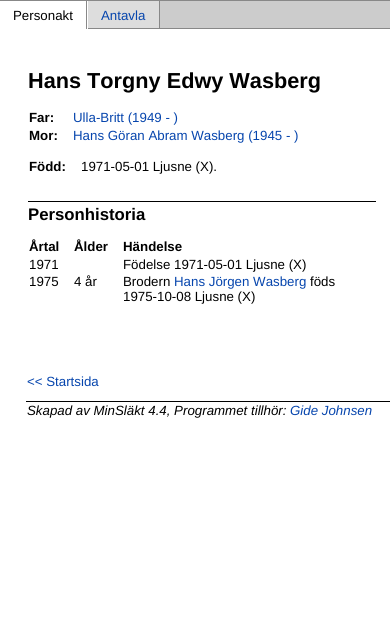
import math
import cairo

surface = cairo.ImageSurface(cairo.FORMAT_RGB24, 390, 632)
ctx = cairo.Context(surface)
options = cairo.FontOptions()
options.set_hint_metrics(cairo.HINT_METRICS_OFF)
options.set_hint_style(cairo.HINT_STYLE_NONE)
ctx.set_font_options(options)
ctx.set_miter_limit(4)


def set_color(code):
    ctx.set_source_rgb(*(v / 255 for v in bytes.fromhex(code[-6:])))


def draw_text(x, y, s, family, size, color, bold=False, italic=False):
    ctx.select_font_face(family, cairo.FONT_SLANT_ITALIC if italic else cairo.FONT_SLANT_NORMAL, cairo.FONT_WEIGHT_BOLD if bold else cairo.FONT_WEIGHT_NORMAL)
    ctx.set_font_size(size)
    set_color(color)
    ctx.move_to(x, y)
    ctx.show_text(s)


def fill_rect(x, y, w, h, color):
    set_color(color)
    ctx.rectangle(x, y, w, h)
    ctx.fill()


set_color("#ffffff")
ctx.paint()
fill_rect(0, 0, 390, 1, "#888888")
fill_rect(86, 0, 1, 29, "#888888")
draw_text(13, 20, "Personakt", "Liberation Sans", 13.3, "#000000")
fill_rect(88, 1, 71, 27, "#dddddd")
fill_rect(159, 0, 1, 29, "#888888")
fill_rect(88, 28, 302, 1, "#888888")
draw_text(101, 20, "Antavla", "Liberation Sans", 13.3, "#0645ad")
fill_rect(160, 1, 230, 27, "#cccccc")
draw_text(28, 88, "Hans Torgny Edwy Wasberg", "Liberation Sans", 21.7, "#000000", bold=True)
draw_text(29, 122, "Far:", "Liberation Sans", 13.3, "#000000", bold=True)
draw_text(73, 122, "Ulla-Britt (1949 - )", "Liberation Sans", 13.3, "#0645ad")
draw_text(29, 140, "Mor:", "Liberation Sans", 13.3, "#000000", bold=True)
draw_text(73, 140, "Hans Göran Abram Wasberg (1945 - )", "Liberation Sans", 13.3, "#0645ad")
draw_text(29, 171, "Född:", "Liberation Sans", 13.3, "#000000", bold=True)
draw_text(81, 171, "1971-05-01 Ljusne (X).", "Liberation Sans", 13.3, "#000000")
fill_rect(28, 201, 348, 1, "#000000")
draw_text(28, 220, "Personhistoria", "Liberation Sans", 16.75, "#000000", bold=True)
draw_text(29, 251, "Årtal", "Liberation Sans", 13.3, "#000000", bold=True)
draw_text(74, 251, "Ålder", "Liberation Sans", 13.3, "#000000", bold=True)
draw_text(123, 251, "Händelse", "Liberation Sans", 13.3, "#000000", bold=True)
draw_text(29, 269, "1971", "Liberation Sans", 13.3, "#000000")
draw_text(123, 269, "Födelse 1971-05-01 Ljusne (X)", "Liberation Sans", 13.3, "#000000")
draw_text(29, 286, "1975", "Liberation Sans", 13.3, "#000000")
draw_text(74, 286, "4 år", "Liberation Sans", 13.3, "#000000")
draw_text(123, 286, "Brodern", "Liberation Sans", 13.3, "#000000")
draw_text(174, 286, "Hans Jörgen Wasberg", "Liberation Sans", 13.3, "#0645ad")
draw_text(310, 286, "föds", "Liberation Sans", 13.3, "#000000")
draw_text(123, 301, "1975-10-08 Ljusne (X)", "Liberation Sans", 13.3, "#000000")
draw_text(27, 386, "<< Startsida", "Liberation Sans", 13.3, "#0645ad")
fill_rect(26, 401, 364, 1, "#000000")
draw_text(27, 415, "Skapad av MinSläkt 4.4, Programmet tillhör:", "Liberation Sans", 13.3, "#000000", italic=True)
draw_text(290, 415, "Gide Johnsen", "Liberation Sans", 13.3, "#0645ad", italic=True)
surface.write_to_png("output.png")
